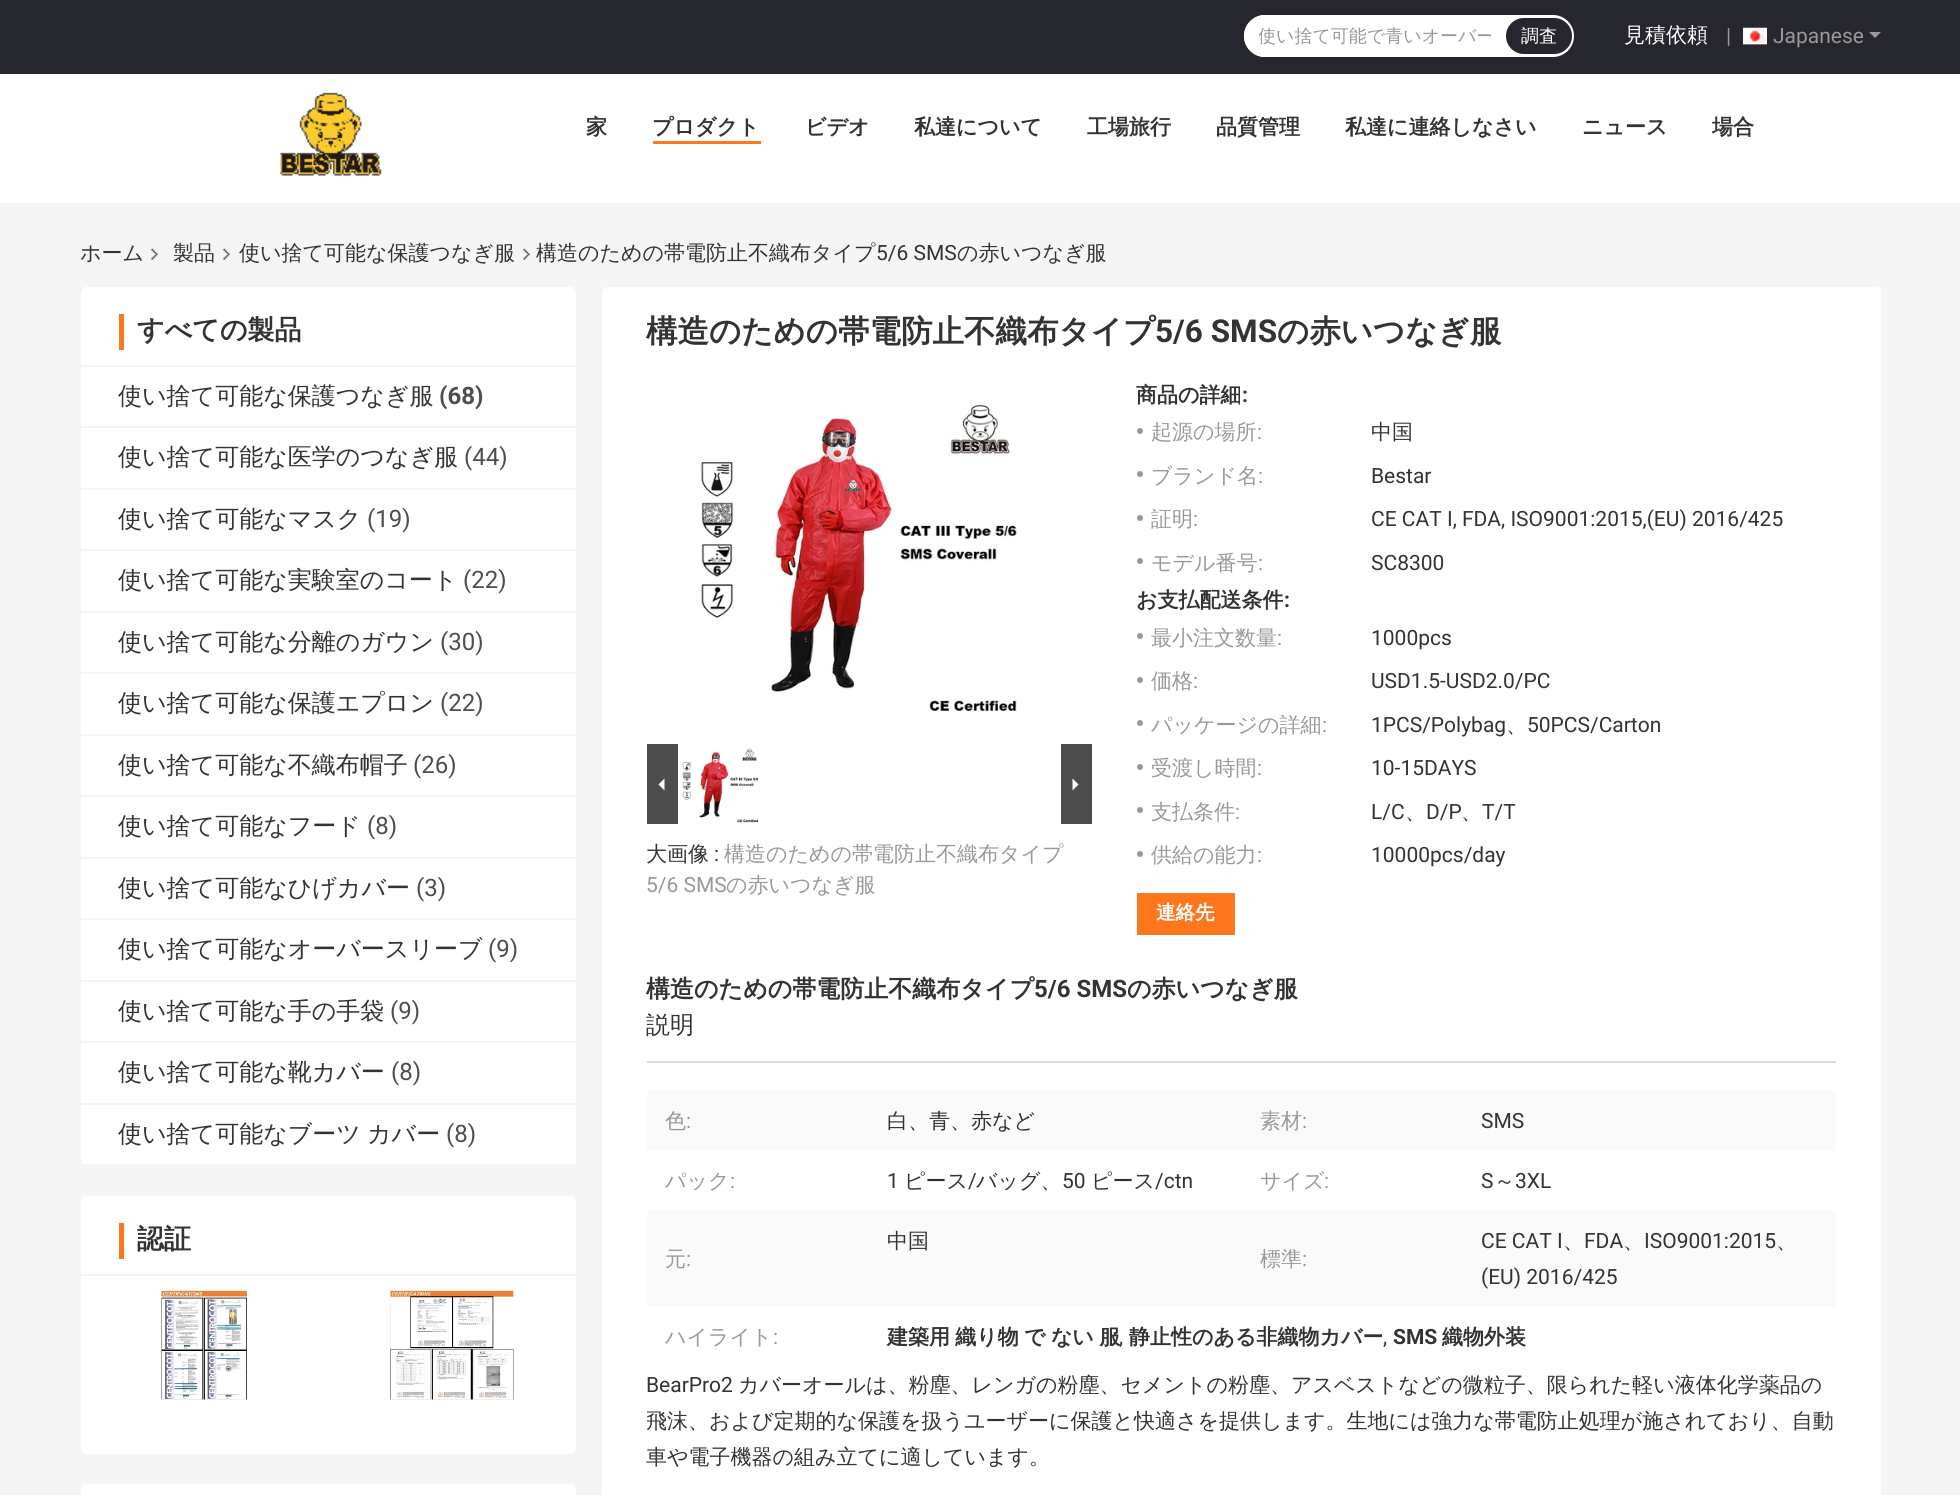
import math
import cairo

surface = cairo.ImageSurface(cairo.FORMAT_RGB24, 1960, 1495)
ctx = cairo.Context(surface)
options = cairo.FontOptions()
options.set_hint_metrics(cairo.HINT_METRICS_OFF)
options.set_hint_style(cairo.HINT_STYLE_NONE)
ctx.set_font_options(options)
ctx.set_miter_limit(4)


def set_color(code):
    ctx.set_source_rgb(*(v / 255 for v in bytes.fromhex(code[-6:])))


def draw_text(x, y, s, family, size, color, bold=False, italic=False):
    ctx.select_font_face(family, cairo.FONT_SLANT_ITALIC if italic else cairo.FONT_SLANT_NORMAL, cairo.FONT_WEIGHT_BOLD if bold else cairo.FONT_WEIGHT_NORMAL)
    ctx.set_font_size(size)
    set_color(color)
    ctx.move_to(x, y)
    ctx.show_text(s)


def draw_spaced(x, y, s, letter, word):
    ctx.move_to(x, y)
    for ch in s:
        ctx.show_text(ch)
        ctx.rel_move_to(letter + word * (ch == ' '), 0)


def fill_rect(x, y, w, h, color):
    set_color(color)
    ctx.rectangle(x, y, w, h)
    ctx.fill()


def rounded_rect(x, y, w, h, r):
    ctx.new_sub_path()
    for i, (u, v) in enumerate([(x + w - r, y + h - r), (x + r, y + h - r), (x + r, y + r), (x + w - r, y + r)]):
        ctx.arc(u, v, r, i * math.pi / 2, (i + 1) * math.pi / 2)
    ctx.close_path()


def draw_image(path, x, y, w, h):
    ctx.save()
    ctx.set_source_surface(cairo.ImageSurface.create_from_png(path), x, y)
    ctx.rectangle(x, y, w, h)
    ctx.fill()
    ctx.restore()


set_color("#f5f5f5")
ctx.paint()
fill_rect(0, 74, 1960, 129, "#ffffff")
fill_rect(0, 0, 1960, 74, "#26262e")
set_color("#ffffff")
rounded_rect(1244, 15, 330, 42, 21)
ctx.fill()
ctx.new_path()
ctx.move_to(1265, 15)
ctx.line_to(1506, 15)
ctx.line_to(1506, 57)
ctx.line_to(1265, 57)
ctx.curve_to(1253.5, 57, 1244, 47.5, 1244, 36)
ctx.curve_to(1244, 24.5, 1253.5, 15, 1265, 15)
ctx.close_path()
ctx.fill()
ctx.save()
ctx.rectangle(1259, 24, 232, 26)
ctx.clip()
draw_text(1258, 42, "使い捨て可能で青いオーバー", "WenQuanYi Zen Hei Medium", 18, "#999999")
ctx.restore()
set_color("#26262e")
rounded_rect(1506, 18, 66, 36, 18)
ctx.fill()
draw_text(1521, 42, "調査", "WenQuanYi Zen Hei Medium", 18, "#ffffff")
draw_text(1624, 42, "見積依頼", "WenQuanYi Zen Hei Medium", 21, "#ffffff")
draw_text(1726, 43, "|", "Roboto", 21, "#999999")
draw_image("assets/img1.png", 1743, 27, 24, 18)
draw_text(1773, 43, "Japanese", "Roboto", 21, "#999999")
ctx.new_path()
ctx.move_to(1869, 32)
ctx.line_to(1881, 32)
ctx.line_to(1875, 38)
ctx.close_path()
ctx.fill()
draw_image("assets/img2.png", 280, 92, 102, 84)
draw_text(586, 134, "家", "WenQuanYi Zen Hei", 21, "#333333", bold=True)
draw_text(652, 134, "プロダクト", "WenQuanYi Zen Hei", 21, "#333333", bold=True)
fill_rect(653, 141, 108, 3, "#ff771c")
draw_text(805, 134, "ビデオ", "WenQuanYi Zen Hei", 21, "#333333", bold=True)
draw_text(914, 134, "私達について", "WenQuanYi Zen Hei", 21, "#333333", bold=True)
draw_text(1087, 134, "工場旅行", "WenQuanYi Zen Hei", 21, "#333333", bold=True)
draw_text(1216, 134, "品質管理", "WenQuanYi Zen Hei", 21, "#333333", bold=True)
draw_text(1345, 134, "私達に連絡しなさい", "WenQuanYi Zen Hei", 21, "#333333", bold=True)
draw_text(1582, 134, "ニュース", "WenQuanYi Zen Hei", 21, "#333333", bold=True)
draw_text(1712, 134, "場合", "WenQuanYi Zen Hei", 21, "#333333", bold=True)
draw_text(80, 260, "ホーム", "WenQuanYi Zen Hei Medium", 21, "#333333")
draw_image("assets/img3.png", 151, 248, 7, 12)
draw_text(173, 260, "製品", "WenQuanYi Zen Hei Medium", 21, "#333333")
draw_image("assets/img3.png", 223, 248, 7, 12)
draw_text(239, 260, "使い捨て可能な保護つなぎ服", "WenQuanYi Zen Hei Medium", 21, "#333333")
draw_image("assets/img4.png", 523, 248, 7, 12)
draw_text(536, 260, "構造のための帯電防止不織布タイプ", "WenQuanYi Zen Hei Medium", 21, "#333333")
draw_text(876, 260, "5/6 SMS", "Roboto", 21, "#333333")
draw_text(957, 260, "の赤いつなぎ服", "WenQuanYi Zen Hei Medium", 21, "#333333")
set_color("#ffffff")
rounded_rect(81, 287, 495, 879, 6)
ctx.fill()
fill_rect(81, 365, 495, 2, "#f5f5f5")
fill_rect(119, 314, 5, 36, "#ff771c")
draw_text(137, 339, "すべての製品", "WenQuanYi Zen Hei", 27, "#333333", bold=True)
fill_rect(81, 426, 495, 2, "#f5f5f5")
draw_text(118, 404, "使い捨て可能な保護つなぎ服", "WenQuanYi Zen Hei Medium", 24, "#333333")
draw_text(439, 404, "(68)", "Roboto", 24, "#4e4e4e", bold=True)
fill_rect(81, 488, 495, 2, "#f5f5f5")
draw_text(118, 465, "使い捨て可能な医学のつなぎ服", "WenQuanYi Zen Hei Medium", 24, "#333333")
draw_text(464, 465, "(44)", "Roboto", 24, "#4e4e4e")
fill_rect(81, 549, 495, 2, "#f5f5f5")
draw_text(118, 527, "使い捨て可能なマスク", "WenQuanYi Zen Hei Medium", 24, "#333333")
draw_text(367, 527, "(19)", "Roboto", 24, "#4e4e4e")
fill_rect(81, 611, 495, 2, "#f5f5f5")
draw_text(118, 588, "使い捨て可能な実験室のコート", "WenQuanYi Zen Hei Medium", 24, "#333333")
draw_text(463, 588, "(22)", "Roboto", 24, "#4e4e4e")
fill_rect(81, 672, 495, 2, "#f5f5f5")
draw_text(118, 650, "使い捨て可能な分離のガウン", "WenQuanYi Zen Hei Medium", 24, "#333333")
draw_text(440, 650, "(30)", "Roboto", 24, "#4e4e4e")
fill_rect(81, 734, 495, 2, "#f5f5f5")
draw_text(118, 711, "使い捨て可能な保護エプロン", "WenQuanYi Zen Hei Medium", 24, "#333333")
draw_text(440, 711, "(22)", "Roboto", 24, "#4e4e4e")
fill_rect(81, 795, 495, 2, "#f5f5f5")
draw_text(118, 773, "使い捨て可能な不織布帽子", "WenQuanYi Zen Hei Medium", 24, "#333333")
draw_text(413, 773, "(26)", "Roboto", 24, "#4e4e4e")
fill_rect(81, 857, 495, 2, "#f5f5f5")
draw_text(118, 834, "使い捨て可能なフード", "WenQuanYi Zen Hei Medium", 24, "#333333")
draw_text(367, 834, "(8)", "Roboto", 24, "#4e4e4e")
fill_rect(81, 918, 495, 2, "#f5f5f5")
draw_text(118, 896, "使い捨て可能なひげカバー", "WenQuanYi Zen Hei Medium", 24, "#333333")
draw_text(416, 896, "(3)", "Roboto", 24, "#4e4e4e")
fill_rect(81, 980, 495, 2, "#f5f5f5")
draw_text(118, 957, "使い捨て可能なオーバースリーブ", "WenQuanYi Zen Hei Medium", 24, "#333333")
draw_text(488, 957, "(9)", "Roboto", 24, "#4e4e4e")
fill_rect(81, 1041, 495, 2, "#f5f5f5")
draw_text(118, 1019, "使い捨て可能な手の手袋", "WenQuanYi Zen Hei Medium", 24, "#333333")
draw_text(390, 1019, "(9)", "Roboto", 24, "#4e4e4e")
fill_rect(81, 1103, 495, 2, "#f5f5f5")
draw_text(118, 1080, "使い捨て可能な靴カバー", "WenQuanYi Zen Hei Medium", 24, "#333333")
draw_text(391, 1080, "(8)", "Roboto", 24, "#4e4e4e")
fill_rect(81, 1164, 495, 2, "#f5f5f5")
ctx.select_font_face("WenQuanYi Zen Hei Medium")
set_color("#333333")
draw_spaced(118, 1142, "使い捨て可能なブーツ カバー", 0, -1)
draw_text(446, 1142, "(8)", "Roboto", 24, "#4e4e4e")
set_color("#ffffff")
rounded_rect(81, 1196, 495, 258, 6)
ctx.fill()
fill_rect(81, 1274, 495, 2, "#f5f5f5")
fill_rect(119, 1223, 5, 36, "#ff771c")
draw_text(137, 1248, "認証", "WenQuanYi Zen Hei", 27, "#333333", bold=True)
draw_image("assets/img5.png", 161, 1290, 86, 110)
draw_image("assets/img6.png", 390, 1290, 124, 110)
set_color("#ffffff")
rounded_rect(81, 1484, 495, 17, 6)
ctx.fill()
rounded_rect(602, 287, 1279, 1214, 6)
ctx.fill()
draw_text(646, 342, "構造のための帯電防止不織布タイプ", "WenQuanYi Zen Hei", 31.5, "#333333", bold=True)
draw_text(1155, 342, "5/6 SMS", "Roboto", 31.5, "#333333", bold=True)
draw_text(1277, 342, "の赤いつなぎ服", "WenQuanYi Zen Hei", 31.5, "#333333", bold=True)
draw_image("assets/img7.png", 700, 404, 317, 307)
fill_rect(647, 744, 31, 80, "#4d4d4d")
set_color("#ffffff")
ctx.new_path()
ctx.move_to(664.5, 778.5)
ctx.line_to(664.5, 790.5)
ctx.line_to(658.5, 784.5)
ctx.close_path()
ctx.fill()
draw_image("assets/img8.png", 682, 748, 77, 75)
fill_rect(1061, 744, 31, 80, "#4d4d4d")
set_color("#ffffff")
ctx.new_path()
ctx.move_to(1072.5, 790.5)
ctx.line_to(1072.5, 778.5)
ctx.line_to(1078.5, 784.5)
ctx.close_path()
ctx.fill()
draw_text(646, 861, "大画像", "WenQuanYi Zen Hei Medium", 21, "#333333")
draw_text(714, 861, ":", "Roboto", 21, "#333333")
draw_text(724, 861, "構造のための帯電防止不織布タイプ", "WenQuanYi Zen Hei Medium", 21, "#999999")
draw_text(646, 892, "5/6 SMS", "Roboto", 21, "#999999")
draw_text(726, 892, "の赤いつなぎ服", "WenQuanYi Zen Hei Medium", 21, "#999999")
draw_text(1136, 402, "商品の詳細", "WenQuanYi Zen Hei", 21, "#333333", bold=True)
draw_text(1242, 402, ":", "Roboto", 21, "#333333", bold=True)
set_color("#999999")
ctx.new_path()
ctx.arc(1140, 431, 3, 0, 2 * math.pi)
ctx.fill()
draw_text(1151, 439, "起源の場所", "WenQuanYi Zen Hei Medium", 21, "#999999")
draw_text(1257, 439, ":", "Roboto", 21, "#999999")
draw_text(1371, 439, "中国", "WenQuanYi Zen Hei Medium", 21, "#333333")
set_color("#999999")
ctx.new_path()
ctx.arc(1140, 474, 3, 0, 2 * math.pi)
ctx.fill()
draw_text(1151, 483, "ブランド名", "WenQuanYi Zen Hei Medium", 21, "#999999")
draw_text(1258, 483, ":", "Roboto", 21, "#999999")
draw_text(1371, 483, "Bestar", "Roboto", 21, "#333333")
set_color("#999999")
ctx.new_path()
ctx.arc(1140, 518, 3, 0, 2 * math.pi)
ctx.fill()
draw_text(1151, 526, "証明", "WenQuanYi Zen Hei Medium", 21, "#999999")
draw_text(1193, 526, ":", "Roboto", 21, "#999999")
draw_text(1371, 526, "CE CAT I, FDA, ISO9001:2015,(EU) 2016/425", "Roboto", 21, "#333333")
set_color("#999999")
ctx.new_path()
ctx.arc(1140, 561, 3, 0, 2 * math.pi)
ctx.fill()
draw_text(1151, 570, "モデル番号", "WenQuanYi Zen Hei Medium", 21, "#999999")
draw_text(1258, 570, ":", "Roboto", 21, "#999999")
draw_text(1371, 570, "SC8300", "Roboto", 21, "#333333")
draw_text(1136, 607, "お支払配送条件", "WenQuanYi Zen Hei", 21, "#333333", bold=True)
draw_text(1284, 607, ":", "Roboto", 21, "#333333", bold=True)
set_color("#999999")
ctx.new_path()
ctx.arc(1140, 636, 3, 0, 2 * math.pi)
ctx.fill()
draw_text(1151, 645, "最小注文数量", "WenQuanYi Zen Hei Medium", 21, "#999999")
draw_text(1277, 645, ":", "Roboto", 21, "#999999")
draw_text(1371, 645, "1000pcs", "Roboto", 21, "#333333")
set_color("#999999")
ctx.new_path()
ctx.arc(1140, 680, 3, 0, 2 * math.pi)
ctx.fill()
draw_text(1151, 688, "価格", "WenQuanYi Zen Hei Medium", 21, "#999999")
draw_text(1193, 688, ":", "Roboto", 21, "#999999")
draw_text(1371, 688, "USD1.5-USD2.0/PC", "Roboto", 21, "#333333")
set_color("#999999")
ctx.new_path()
ctx.arc(1140, 723, 3, 0, 2 * math.pi)
ctx.fill()
draw_text(1151, 732, "パッケージの詳細", "WenQuanYi Zen Hei Medium", 21, "#999999")
draw_text(1322, 732, ":", "Roboto", 21, "#999999")
draw_text(1371, 732, "1PCS/Polybag", "Roboto", 21, "#333333")
draw_text(1506, 732, "、", "WenQuanYi Zen Hei Medium", 21, "#333333")
draw_text(1527, 732, "50PCS/Carton", "Roboto", 21, "#333333")
set_color("#999999")
ctx.new_path()
ctx.arc(1140, 767, 3, 0, 2 * math.pi)
ctx.fill()
draw_text(1151, 775, "受渡し時間", "WenQuanYi Zen Hei Medium", 21, "#999999")
draw_text(1257, 775, ":", "Roboto", 21, "#999999")
draw_text(1371, 775, "10-15DAYS", "Roboto", 21, "#333333")
set_color("#999999")
ctx.new_path()
ctx.arc(1140, 810, 3, 0, 2 * math.pi)
ctx.fill()
draw_text(1151, 819, "支払条件", "WenQuanYi Zen Hei Medium", 21, "#999999")
draw_text(1235, 819, ":", "Roboto", 21, "#999999")
draw_text(1371, 819, "L/C", "Roboto", 21, "#333333")
draw_text(1405, 819, "、", "WenQuanYi Zen Hei Medium", 21, "#333333")
draw_text(1426, 819, "D/P", "Roboto", 21, "#333333")
draw_text(1461, 819, "、", "WenQuanYi Zen Hei Medium", 21, "#333333")
draw_text(1482, 819, "T/T", "Roboto", 21, "#333333")
set_color("#999999")
ctx.new_path()
ctx.arc(1140, 854, 3, 0, 2 * math.pi)
ctx.fill()
draw_text(1151, 862, "供給の能力", "WenQuanYi Zen Hei Medium", 21, "#999999")
draw_text(1257, 862, ":", "Roboto", 21, "#999999")
draw_text(1371, 862, "10000pcs/day", "Roboto", 21, "#333333")
fill_rect(1137, 893, 98, 42, "#ff771c")
draw_text(1156, 919, "連絡先", "WenQuanYi Zen Hei", 19.5, "#ffffff", bold=True)
fill_rect(647, 1061, 1189, 2, "#dddddd")
draw_text(646, 997, "構造のための帯電防止不織布タイプ", "WenQuanYi Zen Hei", 24, "#333333", bold=True)
draw_text(1034, 997, "5/6 SMS", "Roboto", 24, "#333333", bold=True)
draw_text(1127, 997, "の赤いつなぎ服", "WenQuanYi Zen Hei", 24, "#333333", bold=True)
draw_text(646, 1033, "説明", "WenQuanYi Zen Hei Medium", 24, "#333333")
fill_rect(647, 1091, 1189, 60, "#fafafa")
draw_text(665, 1128, "色", "WenQuanYi Zen Hei Medium", 21, "#999999")
draw_text(686, 1128, ":", "Roboto", 21, "#999999")
draw_text(887, 1128, "白、青、赤など", "WenQuanYi Zen Hei Medium", 21, "#333333")
draw_text(1260, 1128, "素材", "WenQuanYi Zen Hei Medium", 21, "#999999")
draw_text(1302, 1128, ":", "Roboto", 21, "#999999")
draw_text(1481, 1128, "SMS", "Roboto", 21, "#333333")
draw_text(665, 1188, "パック", "WenQuanYi Zen Hei Medium", 21, "#999999")
draw_text(730, 1188, ":", "Roboto", 21, "#999999")
draw_text(887, 1188, "1", "Roboto", 21, "#333333")
draw_text(904, 1188, "ピース", "WenQuanYi Zen Hei Medium", 21, "#333333")
draw_text(968, 1188, "/", "Roboto", 21, "#333333")
draw_text(976, 1188, "バッグ、", "WenQuanYi Zen Hei Medium", 21, "#333333")
draw_text(1062, 1188, "50", "Roboto", 21, "#333333")
draw_text(1091, 1188, "ピース", "WenQuanYi Zen Hei Medium", 21, "#333333")
draw_text(1155, 1188, "/ctn", "Roboto", 21, "#333333")
draw_text(1260, 1188, "サイズ", "WenQuanYi Zen Hei Medium", 21, "#999999")
draw_text(1324, 1188, ":", "Roboto", 21, "#999999")
draw_text(1481, 1188, "S", "Roboto", 21, "#333333")
draw_text(1494, 1188, "～", "WenQuanYi Zen Hei Medium", 21, "#333333")
draw_text(1515, 1188, "3XL", "Roboto", 21, "#333333")
fill_rect(647, 1211, 1189, 96, "#fafafa")
draw_text(665, 1266, "元", "WenQuanYi Zen Hei Medium", 21, "#999999")
draw_text(686, 1266, ":", "Roboto", 21, "#999999")
draw_text(887, 1248, "中国", "WenQuanYi Zen Hei Medium", 21, "#333333")
draw_text(1260, 1266, "標準", "WenQuanYi Zen Hei Medium", 21, "#999999")
draw_text(1302, 1266, ":", "Roboto", 21, "#999999")
draw_text(1481, 1248, "CE CAT I", "Roboto", 21, "#333333")
draw_text(1584, 1248, "FDA", "Roboto", 21, "#333333")
draw_text(1644, 1248, "ISO9001:2015", "Roboto", 21, "#333333")
draw_text(1563, 1248, "、", "WenQuanYi Zen Hei Medium", 21, "#333333")
draw_text(1623, 1248, "、", "WenQuanYi Zen Hei Medium", 21, "#333333")
draw_text(1776, 1248, "、", "WenQuanYi Zen Hei Medium", 21, "#333333")
draw_text(1481, 1284, "(EU) 2016/425", "Roboto", 21, "#333333")
draw_text(665, 1344, "ハイライト", "WenQuanYi Zen Hei Medium", 21, "#999999")
draw_text(773, 1344, ":", "Roboto", 21, "#999999")
ctx.select_font_face("WenQuanYi Zen Hei", cairo.FONT_SLANT_NORMAL, cairo.FONT_WEIGHT_BOLD)
set_color("#333333")
draw_spaced(887, 1344, "建築用 織り物 で ない 服", 0, -1)
draw_text(1119, 1344, ",", "Roboto", 21, "#333333")
draw_text(1129, 1344, "静止性のある非織物カバー", "WenQuanYi Zen Hei", 21, "#333333", bold=True)
draw_text(1383, 1344, ",", "Roboto", 21, "#333333")
draw_text(1393, 1344, "SMS", "Roboto", 21, "#333333", bold=True)
draw_text(1442, 1344, "織物外装", "WenQuanYi Zen Hei", 21, "#333333", bold=True)
draw_text(646, 1392, "BearPro2", "Roboto", 21, "#333333")
draw_text(738, 1392, "カバーオールは、粉塵、レンガの粉塵、セメントの粉塵、アスベストなどの微粒子、限られた軽い液体化学薬品の", "WenQuanYi Zen Hei Medium", 21, "#333333")
draw_text(646, 1428, "飛沫、および定期的な保護を扱うユーザーに保護と快適さを提供します。生地には強力な帯電防止処理が施されており、自動", "WenQuanYi Zen Hei Medium", 21, "#333333")
draw_text(646, 1464, "車や電子機器の組み立てに適しています。", "WenQuanYi Zen Hei Medium", 21, "#333333")
surface.write_to_png("output.png")
